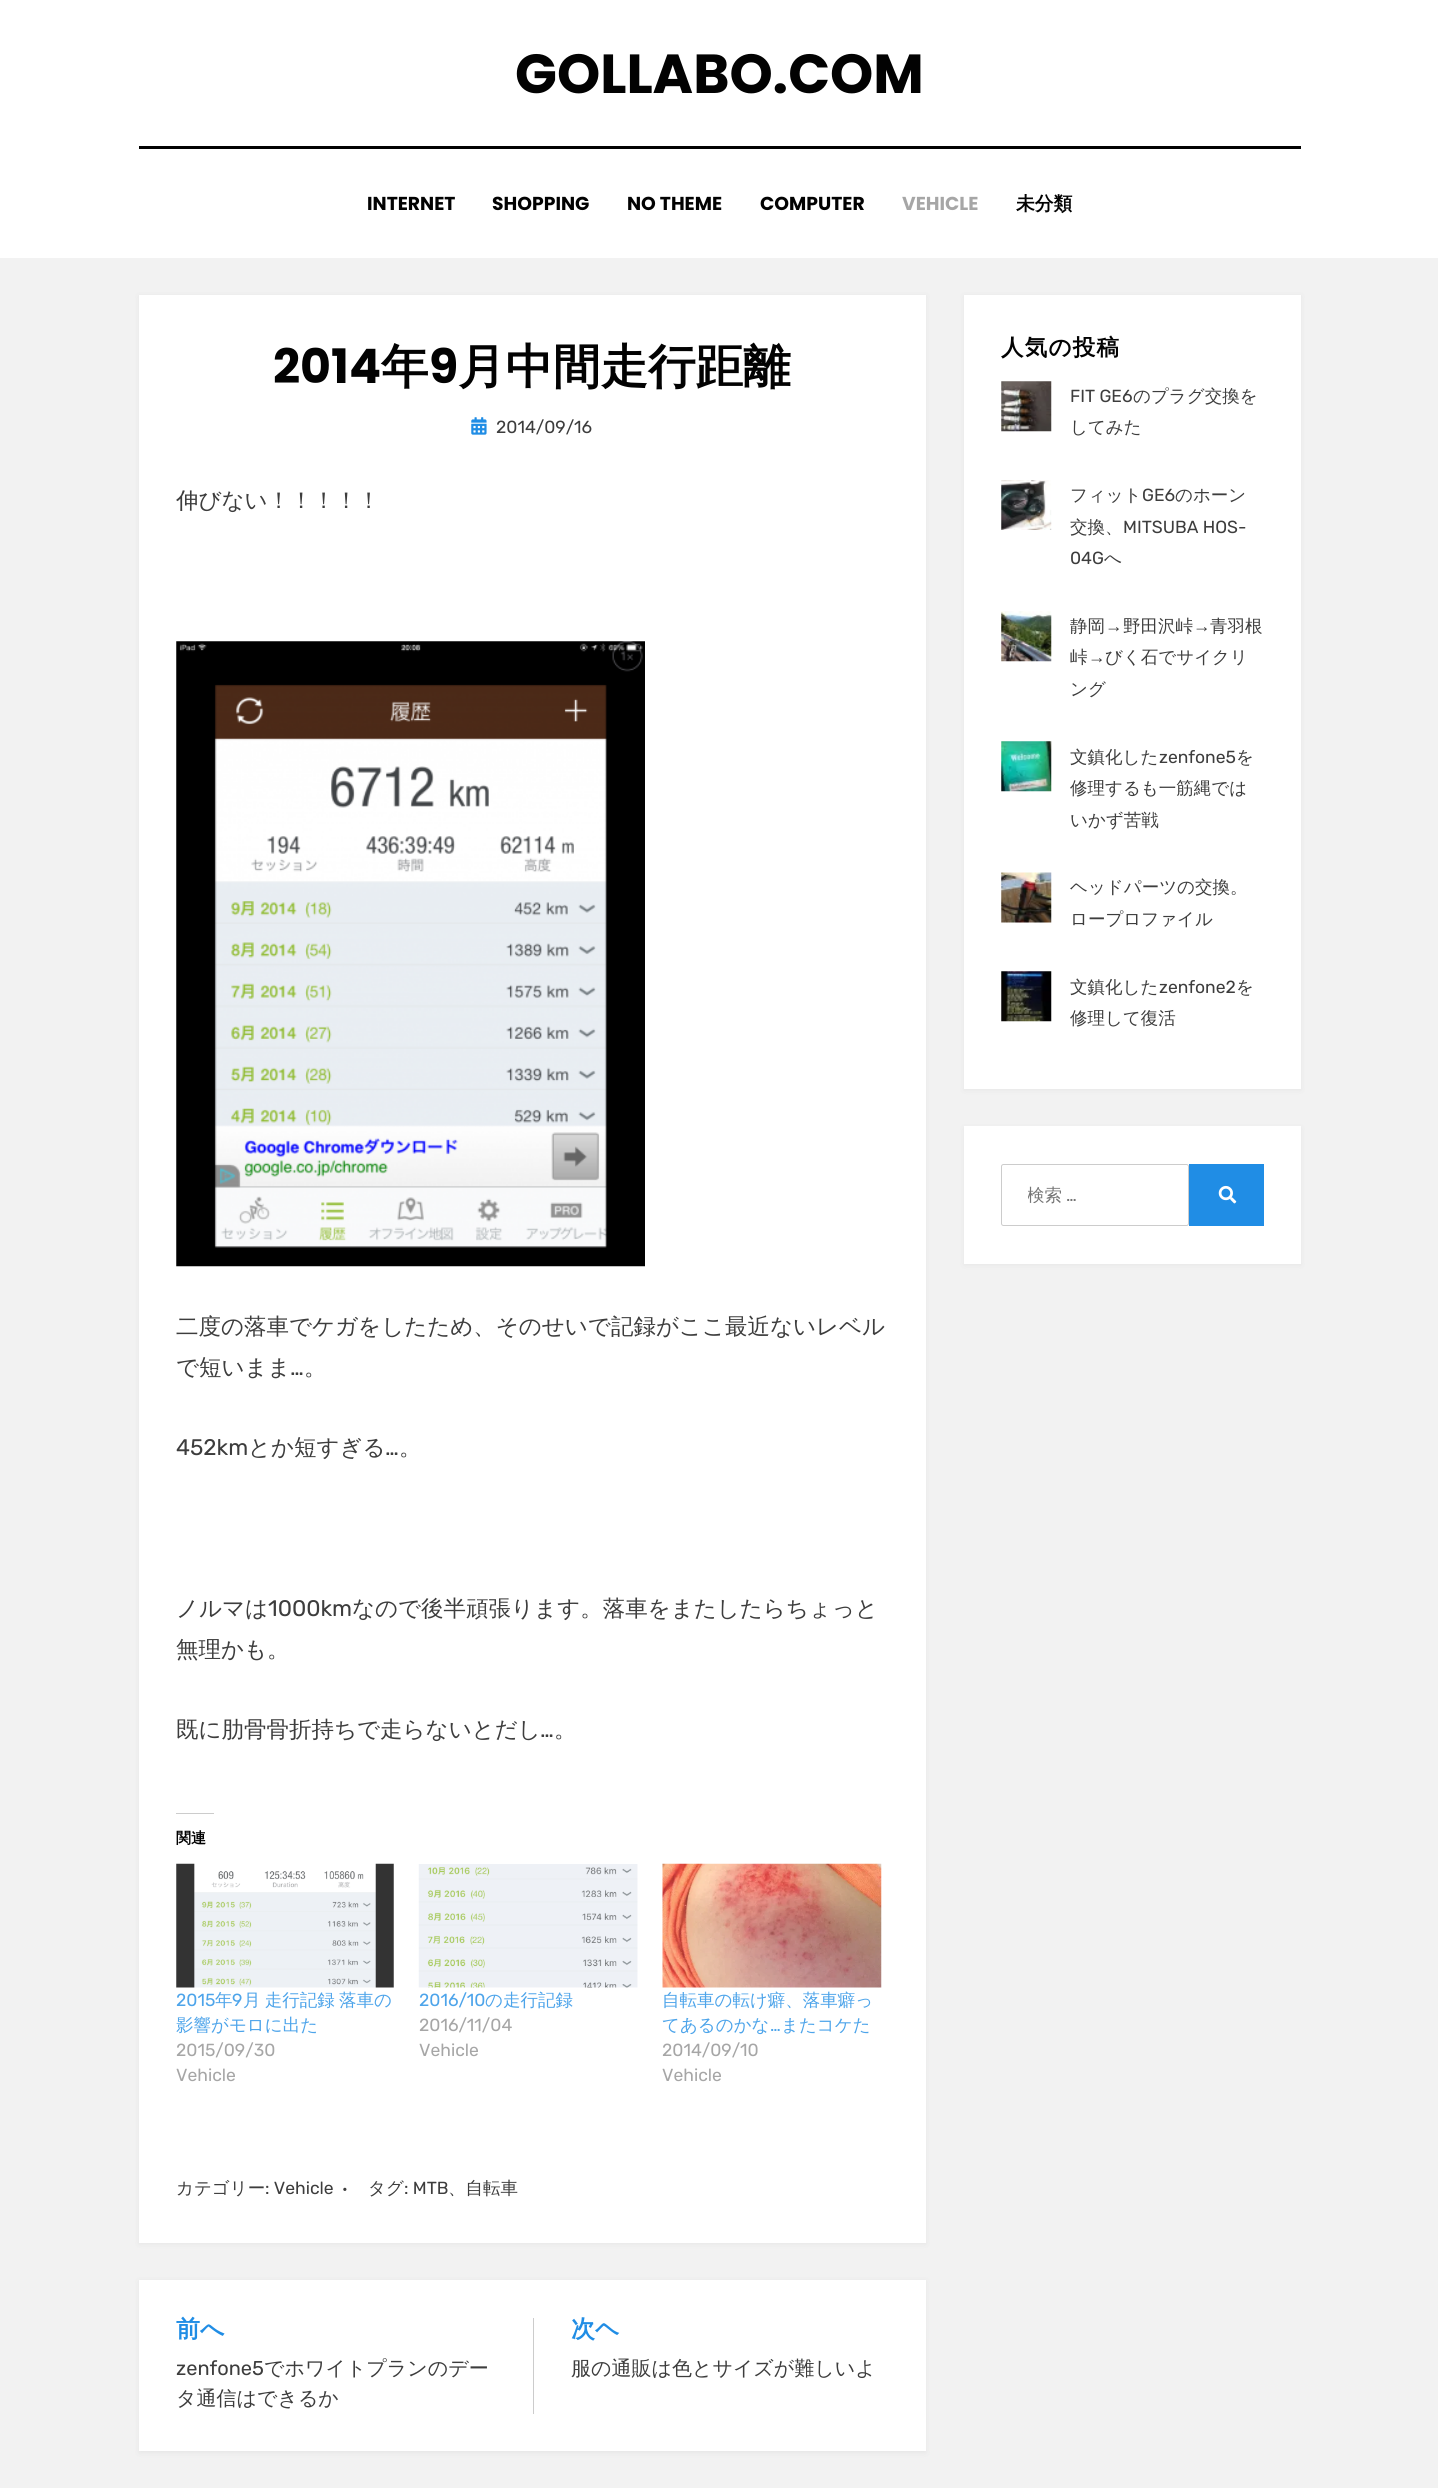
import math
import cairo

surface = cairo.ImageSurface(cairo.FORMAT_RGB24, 1438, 2488)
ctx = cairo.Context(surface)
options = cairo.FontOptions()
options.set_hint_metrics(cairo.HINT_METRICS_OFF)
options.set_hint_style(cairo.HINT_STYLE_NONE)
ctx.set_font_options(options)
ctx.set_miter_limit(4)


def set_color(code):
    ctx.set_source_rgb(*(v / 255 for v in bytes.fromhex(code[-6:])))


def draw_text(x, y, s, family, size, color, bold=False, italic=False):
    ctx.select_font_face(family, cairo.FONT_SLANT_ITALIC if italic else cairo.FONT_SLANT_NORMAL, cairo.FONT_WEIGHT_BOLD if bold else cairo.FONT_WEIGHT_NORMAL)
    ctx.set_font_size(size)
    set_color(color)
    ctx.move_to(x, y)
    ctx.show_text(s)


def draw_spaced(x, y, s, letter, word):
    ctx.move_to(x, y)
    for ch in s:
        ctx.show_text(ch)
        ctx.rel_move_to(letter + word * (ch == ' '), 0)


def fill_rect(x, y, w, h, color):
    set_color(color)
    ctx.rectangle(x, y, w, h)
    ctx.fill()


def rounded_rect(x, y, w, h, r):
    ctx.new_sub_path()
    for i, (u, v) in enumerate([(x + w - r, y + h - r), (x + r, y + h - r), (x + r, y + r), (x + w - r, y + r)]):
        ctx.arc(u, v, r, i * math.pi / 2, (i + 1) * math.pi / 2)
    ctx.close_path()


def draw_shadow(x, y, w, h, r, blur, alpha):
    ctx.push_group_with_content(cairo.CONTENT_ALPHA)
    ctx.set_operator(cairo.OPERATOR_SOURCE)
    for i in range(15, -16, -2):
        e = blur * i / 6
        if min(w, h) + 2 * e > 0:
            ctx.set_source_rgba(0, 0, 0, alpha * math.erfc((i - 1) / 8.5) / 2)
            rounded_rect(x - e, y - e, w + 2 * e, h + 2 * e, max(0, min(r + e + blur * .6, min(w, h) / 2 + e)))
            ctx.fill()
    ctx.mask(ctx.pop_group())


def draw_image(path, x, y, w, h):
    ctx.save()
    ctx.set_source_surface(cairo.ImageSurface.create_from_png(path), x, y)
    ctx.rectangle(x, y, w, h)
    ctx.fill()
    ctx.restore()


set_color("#f2f2f2")
ctx.paint()
fill_rect(0, 0, 1438, 258, "#ffffff")
draw_text(515, 93, "GOLLABO.COM", "Poppins", 55, "#020202", bold=True)
fill_rect(139, 146, 1162, 3, "#020202")
draw_text(367, 210, "INTERNET", "Poppins", 18.75, "#020202", bold=True)
draw_text(492, 210, "SHOPPING", "Poppins", 18.75, "#020202", bold=True)
draw_text(627, 210, "NO THEME", "Poppins", 18.75, "#020202", bold=True)
draw_text(760, 210, "COMPUTER", "Poppins", 18.75, "#020202", bold=True)
draw_text(902, 210, "VEHICLE", "Poppins", 18.75, "#a6a6a6", bold=True)
draw_text(1016, 210, "未分類", "WenQuanYi Zen Hei", 18.75, "#020202", bold=True)
set_color("#000001")
draw_shadow(139, 296, 787, 1948, 0, 3, 0.05)
fill_rect(139, 295, 787, 1948, "#ffffff")
draw_text(273, 383, "2014", "Poppins", 47.5, "#020202", bold=True)
draw_text(381, 383, "年", "WenQuanYi Zen Hei", 47.5, "#020202", bold=True)
draw_text(429, 383, "9", "Poppins", 47.5, "#020202", bold=True)
draw_text(458, 383, "月中間走行距離", "WenQuanYi Zen Hei", 47.5, "#020202", bold=True)
draw_image("assets/img1.png", 471, 417, 16, 18)
draw_text(496, 433, "2014/09/16", "Rubik", 17.5, "#3d3d3d")
draw_text(176, 508, "伸びない！！！！！", "WenQuanYi Zen Hei Medium", 22.5, "#3d3d3d")
draw_image("assets/img2.png", 176, 641, 469, 626)
draw_text(176, 1334, "二度の落車でケガをしたため、そのせいで記録がここ最近ないレベル", "WenQuanYi Zen Hei Medium", 22.5, "#3d3d3d")
draw_text(176, 1375, "で短いまま", "WenQuanYi Zen Hei Medium", 22.5, "#3d3d3d")
draw_text(290, 1375, "…", "Rubik", 22.5, "#3d3d3d")
draw_text(304, 1375, "。", "WenQuanYi Zen Hei Medium", 22.5, "#3d3d3d")
draw_text(176, 1455, "452km", "Rubik", 22.5, "#3d3d3d")
draw_text(248, 1455, "とか短すぎる", "WenQuanYi Zen Hei Medium", 22.5, "#3d3d3d")
draw_text(385, 1455, "…", "Rubik", 22.5, "#3d3d3d")
draw_text(399, 1455, "。", "WenQuanYi Zen Hei Medium", 22.5, "#3d3d3d")
draw_text(176, 1616, "ノルマは", "WenQuanYi Zen Hei Medium", 22.5, "#3d3d3d")
draw_text(268, 1616, "1000km", "Rubik", 22.5, "#3d3d3d")
draw_text(352, 1616, "なので後半頑張ります。落車をまたしたらちょっと", "WenQuanYi Zen Hei Medium", 22.5, "#3d3d3d")
draw_text(176, 1657, "無理かも。", "WenQuanYi Zen Hei Medium", 22.5, "#3d3d3d")
draw_text(176, 1737, "既に肋骨骨折持ちで走らないとだし", "WenQuanYi Zen Hei Medium", 22.5, "#3d3d3d")
draw_text(540, 1737, "…", "Rubik", 22.5, "#3d3d3d")
draw_text(554, 1737, "。", "WenQuanYi Zen Hei Medium", 22.5, "#3d3d3d")
fill_rect(176, 1813, 38, 1, "#cccccc")
draw_text(176, 1843, "関連", "WenQuanYi Zen Hei", 15, "#020202", bold=True)
draw_image("assets/img3.png", 176, 1863, 218, 125)
draw_text(176, 2006, "2015", "Rubik", 17.5, "#4da4ea")
draw_text(215, 2006, "年", "WenQuanYi Zen Hei Medium", 17.5, "#4da4ea")
draw_text(232, 2006, "9", "Rubik", 17.5, "#4da4ea")
ctx.select_font_face("WenQuanYi Zen Hei Medium")
draw_spaced(243, 2006, "月 走行記録 落車の", 0, -1)
draw_text(176, 2031, "影響がモロに出た", "WenQuanYi Zen Hei Medium", 17.5, "#4da4ea")
draw_text(176, 2056, "2015/09/30", "Rubik", 17.5, "#a6a6a6")
draw_text(176, 2081, "Vehicle", "Rubik", 17.5, "#a6a6a6")
draw_image("assets/img4.png", 418, 1864, 220, 124)
draw_text(419, 2006, "2016/10", "Rubik", 17.5, "#4da4ea")
draw_text(485, 2006, "の走行記録", "WenQuanYi Zen Hei Medium", 17.5, "#4da4ea")
draw_text(419, 2031, "2016/11/04", "Rubik", 17.5, "#a6a6a6")
draw_text(419, 2056, "Vehicle", "Rubik", 17.5, "#a6a6a6")
draw_image("assets/img5.png", 662, 1863, 220, 125)
draw_text(662, 2006, "自転車の転け癖、落車癖っ", "WenQuanYi Zen Hei Medium", 17.5, "#4da4ea")
draw_text(662, 2031, "てあるのかな", "WenQuanYi Zen Hei Medium", 17.5, "#4da4ea")
draw_text(770, 2031, "…", "Rubik", 17.5, "#4da4ea")
draw_text(781, 2031, "またコケた", "WenQuanYi Zen Hei Medium", 17.5, "#4da4ea")
draw_text(662, 2056, "2014/09/10", "Rubik", 17.5, "#a6a6a6")
draw_text(662, 2081, "Vehicle", "Rubik", 17.5, "#a6a6a6")
draw_text(176, 2194, "カテゴリー", "WenQuanYi Zen Hei Medium", 17.5, "#3d3d3d")
draw_text(265, 2194, ": Vehicle", "Rubik", 17.5, "#3d3d3d")
draw_text(342, 2194, "•", "Rubik", 15, "#3d3d3d")
draw_text(368, 2194, "タグ", "WenQuanYi Zen Hei Medium", 17.5, "#3d3d3d")
draw_text(404, 2194, ": MTB", "Rubik", 17.5, "#3d3d3d")
draw_text(448, 2194, "、自転車", "WenQuanYi Zen Hei Medium", 17.5, "#3d3d3d")
set_color("#000001")
draw_shadow(139, 2281, 787, 172, 0, 3, 0.05)
fill_rect(139, 2280, 787, 171, "#ffffff")
draw_text(176, 2337, "前へ", "WenQuanYi Zen Hei", 24, "#208de5", bold=True)
draw_text(176, 2375, "zenfone5", "Rubik", 20, "#3d3d3d")
draw_text(264, 2375, "でホワイトプランのデー", "WenQuanYi Zen Hei Medium", 20, "#3d3d3d")
draw_text(176, 2405, "タ通信はできるか", "WenQuanYi Zen Hei Medium", 20, "#3d3d3d")
fill_rect(533, 2318, 1, 96, "#cccccc")
draw_text(571, 2337, "次ヘ", "WenQuanYi Zen Hei", 24, "#208de5", bold=True)
draw_text(571, 2375, "服の通販は色とサイズが難しいよ", "WenQuanYi Zen Hei Medium", 20, "#3d3d3d")
set_color("#000001")
draw_shadow(964, 296, 337, 794, 0, 3, 0.05)
fill_rect(964, 295, 337, 794, "#ffffff")
ctx.select_font_face("WenQuanYi Zen Hei", cairo.FONT_SLANT_NORMAL, cairo.FONT_WEIGHT_BOLD)
ctx.set_font_size(22.5)
set_color("#020202")
draw_spaced(1001, 355, "人気の投稿", 1.25, 0)
draw_image("assets/img6.png", 1001, 381, 51, 51)
draw_text(1070, 402, "FIT GE6", "Rubik", 17.5, "#3d3d3d")
draw_text(1133, 402, "のプラグ交換を", "WenQuanYi Zen Hei Medium", 17.5, "#3d3d3d")
draw_text(1070, 433, "してみた", "WenQuanYi Zen Hei Medium", 17.5, "#3d3d3d")
draw_image("assets/img7.png", 1001, 480, 51, 50)
draw_text(1070, 501, "フィット", "WenQuanYi Zen Hei Medium", 17.5, "#3d3d3d")
draw_text(1142, 501, "GE6", "Rubik", 17.5, "#3d3d3d")
draw_text(1175, 501, "のホーン", "WenQuanYi Zen Hei Medium", 17.5, "#3d3d3d")
draw_text(1070, 533, "交換、", "WenQuanYi Zen Hei Medium", 17.5, "#3d3d3d")
draw_text(1123, 533, "MITSUBA HOS-", "Rubik", 17.5, "#3d3d3d")
draw_text(1070, 564, "04G", "Rubik", 17.5, "#3d3d3d")
draw_text(1104, 564, "へ", "WenQuanYi Zen Hei Medium", 17.5, "#3d3d3d")
draw_image("assets/img8.png", 1001, 611, 51, 51)
draw_text(1070, 632, "静岡", "WenQuanYi Zen Hei Medium", 17.5, "#3d3d3d")
draw_text(1105, 632, "→", "Liberation Sans", 17.5, "#3d3d3d")
draw_text(1123, 632, "野田沢峠", "WenQuanYi Zen Hei Medium", 17.5, "#3d3d3d")
draw_text(1193, 632, "→", "Liberation Sans", 17.5, "#3d3d3d")
draw_text(1210, 632, "青羽根", "WenQuanYi Zen Hei Medium", 17.5, "#3d3d3d")
draw_text(1070, 663, "峠", "WenQuanYi Zen Hei Medium", 17.5, "#3d3d3d")
draw_text(1088, 663, "→", "Liberation Sans", 17.5, "#3d3d3d")
draw_text(1105, 663, "びく石でサイクリ", "WenQuanYi Zen Hei Medium", 17.5, "#3d3d3d")
draw_text(1070, 695, "ング", "WenQuanYi Zen Hei Medium", 17.5, "#3d3d3d")
draw_image("assets/img9.png", 1001, 741, 51, 51)
draw_text(1070, 763, "文鎮化した", "WenQuanYi Zen Hei Medium", 17.5, "#3d3d3d")
draw_text(1159, 763, "zenfone5", "Rubik", 17.5, "#3d3d3d")
draw_text(1236, 763, "を", "WenQuanYi Zen Hei Medium", 17.5, "#3d3d3d")
draw_text(1070, 794, "修理するも一筋縄では", "WenQuanYi Zen Hei Medium", 17.5, "#3d3d3d")
draw_text(1070, 826, "いかず苦戦", "WenQuanYi Zen Hei Medium", 17.5, "#3d3d3d")
draw_image("assets/img10.png", 1001, 872, 51, 51)
draw_text(1070, 893, "ヘッドパーツの交換。", "WenQuanYi Zen Hei Medium", 17.5, "#3d3d3d")
draw_text(1070, 925, "ロープロファイル", "WenQuanYi Zen Hei Medium", 17.5, "#3d3d3d")
draw_image("assets/img11.png", 1001, 971, 51, 51)
draw_text(1070, 993, "文鎮化した", "WenQuanYi Zen Hei Medium", 17.5, "#3d3d3d")
draw_text(1159, 993, "zenfone2", "Rubik", 17.5, "#3d3d3d")
draw_text(1236, 993, "を", "WenQuanYi Zen Hei Medium", 17.5, "#3d3d3d")
draw_text(1070, 1024, "修理して復活", "WenQuanYi Zen Hei Medium", 17.5, "#3d3d3d")
set_color("#000001")
draw_shadow(964, 1128, 337, 137, 0, 3, 0.05)
fill_rect(964, 1126, 337, 138, "#ffffff")
rounded_rect(1001.5, 1164.5, 187, 61, 2)
set_color("#cccccc")
ctx.set_line_width(1)
ctx.stroke()
ctx.save()
ctx.rectangle(1028, 1185, 130, 23)
ctx.clip()
draw_text(1027, 1201, "検索", "WenQuanYi Zen Hei Medium", 17.5, "#757575")
ctx.restore()
draw_text(1066, 1201, "…", "Rubik", 17.5, "#757575")
fill_rect(1189, 1164, 75, 62, "#208de5")
draw_image("assets/img12.png", 1218, 1185, 19, 19)
surface.write_to_png("output.png")
